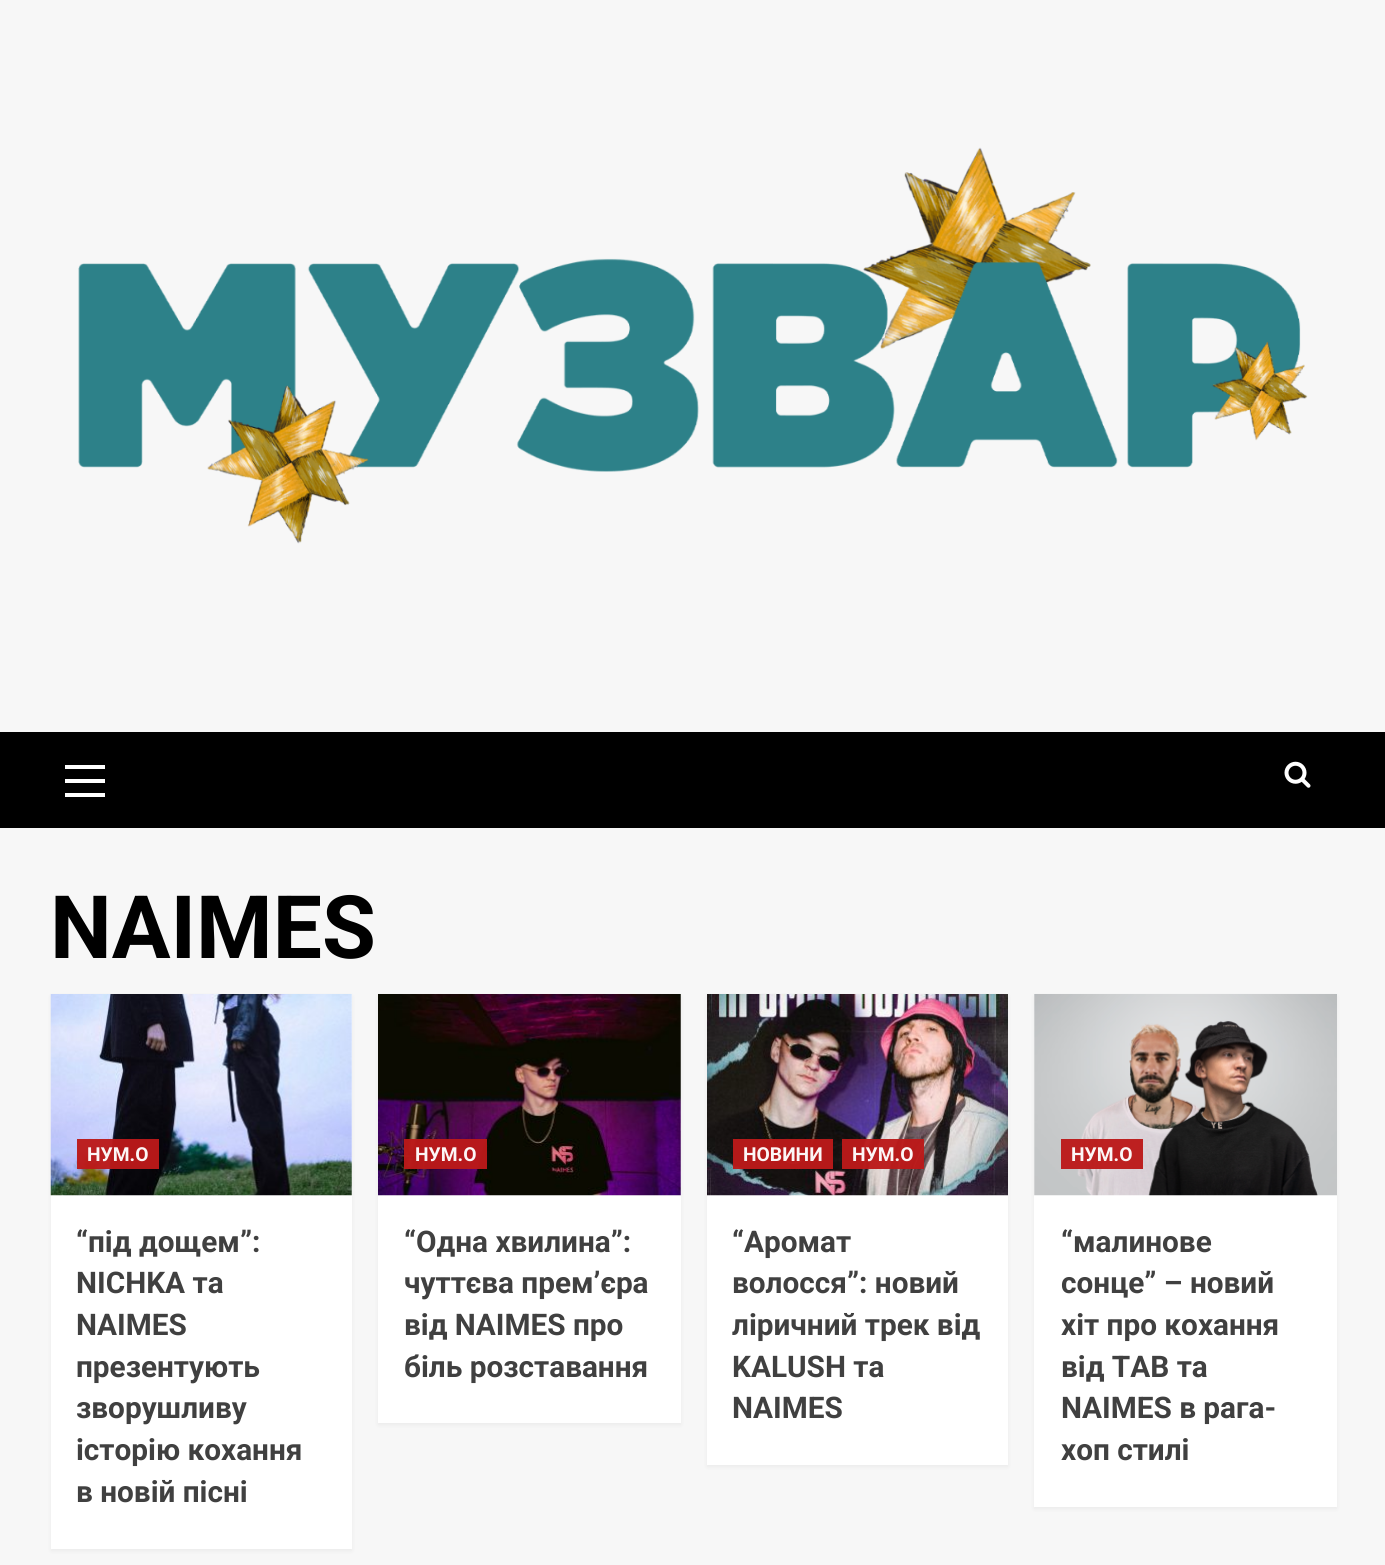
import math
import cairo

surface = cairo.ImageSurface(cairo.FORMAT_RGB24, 1385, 1565)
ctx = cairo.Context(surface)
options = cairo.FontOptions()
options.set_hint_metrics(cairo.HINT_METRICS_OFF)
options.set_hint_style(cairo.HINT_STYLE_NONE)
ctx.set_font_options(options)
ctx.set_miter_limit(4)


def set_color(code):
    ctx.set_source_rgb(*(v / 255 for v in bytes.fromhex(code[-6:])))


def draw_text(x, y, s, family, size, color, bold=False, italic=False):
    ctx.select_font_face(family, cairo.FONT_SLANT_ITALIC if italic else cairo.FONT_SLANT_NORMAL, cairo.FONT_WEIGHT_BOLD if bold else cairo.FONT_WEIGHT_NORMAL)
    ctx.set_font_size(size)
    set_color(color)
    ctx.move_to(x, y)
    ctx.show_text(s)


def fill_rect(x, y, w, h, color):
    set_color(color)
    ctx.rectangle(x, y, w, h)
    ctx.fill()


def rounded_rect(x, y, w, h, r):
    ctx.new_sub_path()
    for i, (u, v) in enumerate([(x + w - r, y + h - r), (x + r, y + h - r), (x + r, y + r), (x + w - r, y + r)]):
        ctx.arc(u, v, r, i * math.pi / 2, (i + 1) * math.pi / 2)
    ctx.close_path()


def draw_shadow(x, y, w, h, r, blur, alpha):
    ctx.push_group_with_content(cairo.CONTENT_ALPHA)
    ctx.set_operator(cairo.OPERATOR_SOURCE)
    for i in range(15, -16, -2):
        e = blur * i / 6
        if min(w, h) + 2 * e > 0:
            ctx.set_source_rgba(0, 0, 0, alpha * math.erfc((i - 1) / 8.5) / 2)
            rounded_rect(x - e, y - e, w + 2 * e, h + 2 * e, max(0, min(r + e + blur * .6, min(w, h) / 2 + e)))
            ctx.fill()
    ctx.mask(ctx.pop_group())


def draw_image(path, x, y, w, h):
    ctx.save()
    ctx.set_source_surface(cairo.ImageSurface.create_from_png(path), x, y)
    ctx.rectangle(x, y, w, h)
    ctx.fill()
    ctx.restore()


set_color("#f7f7f7")
ctx.paint()
draw_image("assets/img1.png", 78, 147, 1230, 397)
fill_rect(0, 732, 1385, 96, "#000000")
fill_rect(65, 779, 40, 4, "#ffffff")
fill_rect(65, 765, 40, 4, "#ffffff")
fill_rect(65, 793, 40, 4, "#ffffff")
draw_image("assets/img2.png", 1284, 761, 27, 27)
draw_text(50, 958, "NAIMES", "Roboto", 87.5, "#000000", bold=True)
set_color("#000000")
draw_shadow(51, 996, 301, 555, 0, 2, 0.05)
fill_rect(51, 994, 301, 555, "#ffffff")
draw_image("assets/img3.png", 50, 994, 302, 202)
ctx.set_source_rgba(0.733, 0.098, 0.098, 0.96)
ctx.rectangle(77, 1139, 82, 30)
ctx.fill()
draw_text(87, 1161, "НУМ.О", "Roboto", 19.25, "#fcf6f6", bold=True)
draw_text(76, 1252, "“під дощем”:", "Roboto", 29.75, "#404040", bold=True)
draw_text(76, 1293, "NICHKA та", "Roboto", 29.75, "#404040", bold=True)
draw_text(76, 1335, "NAIMES", "Roboto", 29.75, "#404040", bold=True)
draw_text(76, 1377, "презентують", "Roboto", 29.75, "#404040", bold=True)
draw_text(76, 1418, "зворушливу", "Roboto", 29.75, "#404040", bold=True)
draw_text(76, 1460, "історію кохання", "Roboto", 29.75, "#404040", bold=True)
draw_text(76, 1502, "в новій пісні", "Roboto", 29.75, "#404040", bold=True)
set_color("#000000")
draw_shadow(378, 996, 303, 429, 0, 2, 0.05)
fill_rect(378, 994, 303, 429, "#ffffff")
draw_image("assets/img4.png", 378, 994, 303, 202)
ctx.set_source_rgba(0.733, 0.098, 0.098, 0.96)
ctx.rectangle(404, 1139, 83, 30)
ctx.fill()
draw_text(415, 1161, "НУМ.О", "Roboto", 19.25, "#fcf6f6", bold=True)
draw_text(404, 1252, "“Одна хвилина”:", "Roboto", 29.75, "#404040", bold=True)
draw_text(404, 1293, "чуттєва прем’єра", "Roboto", 29.75, "#404040", bold=True)
draw_text(404, 1335, "від NAIMES про", "Roboto", 29.75, "#404040", bold=True)
draw_text(404, 1377, "біль розставання", "Roboto", 29.75, "#404040", bold=True)
set_color("#000000")
draw_shadow(707, 996, 301, 471, 0, 2, 0.05)
fill_rect(707, 1195, 301, 270, "#ffffff")
draw_image("assets/img5.png", 707, 994, 301, 202)
ctx.set_source_rgba(0.733, 0.098, 0.098, 0.96)
ctx.rectangle(733, 1139, 100, 30)
ctx.fill()
draw_text(743, 1161, "НОВИНИ", "Roboto", 19.25, "#fcf6f6", bold=True)
ctx.set_source_rgba(0.733, 0.098, 0.098, 0.96)
ctx.rectangle(842, 1139, 82, 30)
ctx.fill()
draw_text(852, 1161, "НУМ.О", "Roboto", 19.25, "#fcf6f6", bold=True)
draw_text(732, 1252, "“Аромат", "Roboto", 29.75, "#404040", bold=True)
draw_text(732, 1293, "волосся”: новий", "Roboto", 29.75, "#404040", bold=True)
draw_text(732, 1335, "ліричний трек від", "Roboto", 29.75, "#404040", bold=True)
draw_text(732, 1377, "KALUSH та", "Roboto", 29.75, "#404040", bold=True)
draw_text(732, 1418, "NAIMES", "Roboto", 29.75, "#404040", bold=True)
set_color("#000000")
draw_shadow(1034, 996, 303, 513, 0, 2, 0.05)
fill_rect(1034, 994, 303, 513, "#ffffff")
draw_image("assets/img6.png", 1034, 994, 303, 202)
ctx.set_source_rgba(0.733, 0.098, 0.098, 0.96)
ctx.rectangle(1061, 1139, 82, 30)
ctx.fill()
draw_text(1071, 1161, "НУМ.О", "Roboto", 19.25, "#fcf6f6", bold=True)
draw_text(1061, 1252, "“малинове", "Roboto", 29.75, "#404040", bold=True)
draw_text(1061, 1293, "сонце” – новий", "Roboto", 29.75, "#404040", bold=True)
draw_text(1061, 1335, "хіт про кохання", "Roboto", 29.75, "#404040", bold=True)
draw_text(1061, 1377, "від TAB та", "Roboto", 29.75, "#404040", bold=True)
draw_text(1061, 1418, "NAIMES в рага-", "Roboto", 29.75, "#404040", bold=True)
draw_text(1061, 1460, "хоп стилі", "Roboto", 29.75, "#404040", bold=True)
surface.write_to_png("output.png")
